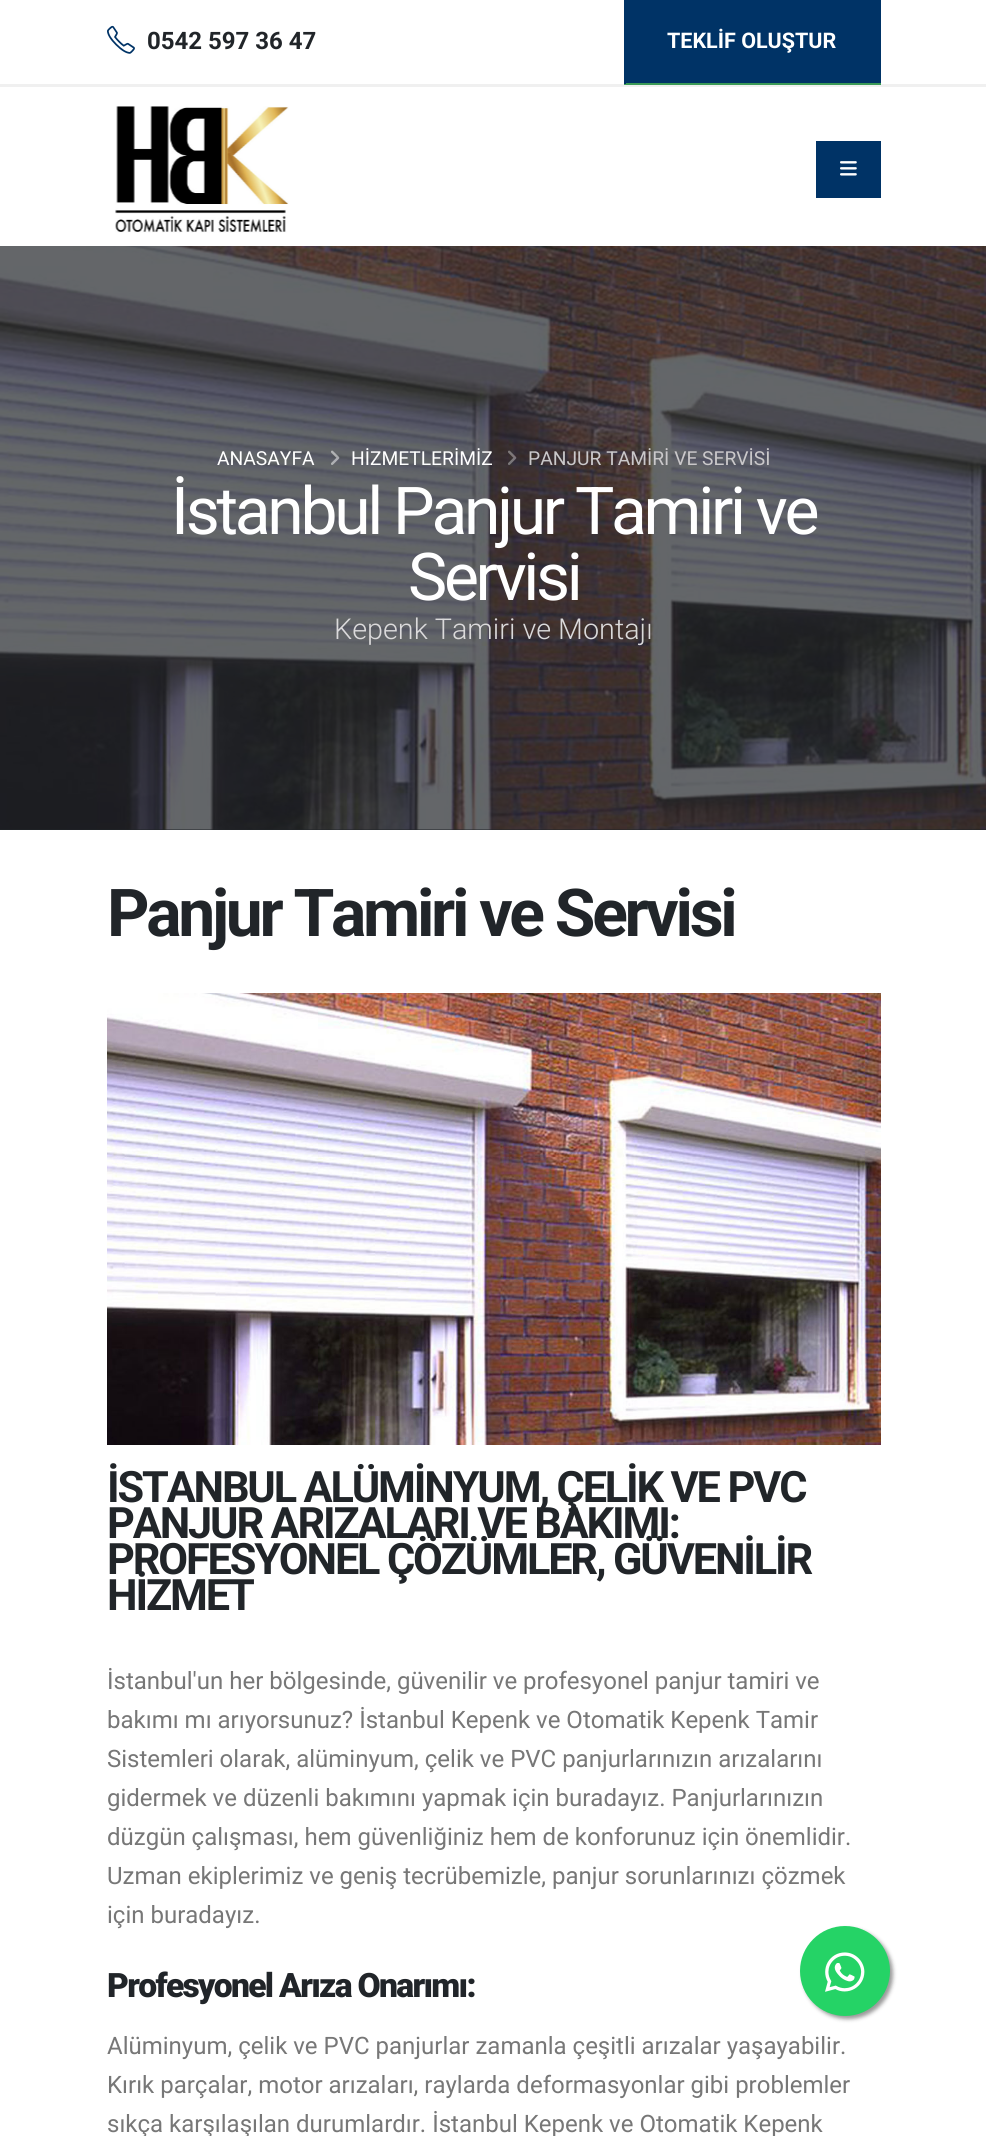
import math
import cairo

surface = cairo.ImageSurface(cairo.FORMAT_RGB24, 986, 2136)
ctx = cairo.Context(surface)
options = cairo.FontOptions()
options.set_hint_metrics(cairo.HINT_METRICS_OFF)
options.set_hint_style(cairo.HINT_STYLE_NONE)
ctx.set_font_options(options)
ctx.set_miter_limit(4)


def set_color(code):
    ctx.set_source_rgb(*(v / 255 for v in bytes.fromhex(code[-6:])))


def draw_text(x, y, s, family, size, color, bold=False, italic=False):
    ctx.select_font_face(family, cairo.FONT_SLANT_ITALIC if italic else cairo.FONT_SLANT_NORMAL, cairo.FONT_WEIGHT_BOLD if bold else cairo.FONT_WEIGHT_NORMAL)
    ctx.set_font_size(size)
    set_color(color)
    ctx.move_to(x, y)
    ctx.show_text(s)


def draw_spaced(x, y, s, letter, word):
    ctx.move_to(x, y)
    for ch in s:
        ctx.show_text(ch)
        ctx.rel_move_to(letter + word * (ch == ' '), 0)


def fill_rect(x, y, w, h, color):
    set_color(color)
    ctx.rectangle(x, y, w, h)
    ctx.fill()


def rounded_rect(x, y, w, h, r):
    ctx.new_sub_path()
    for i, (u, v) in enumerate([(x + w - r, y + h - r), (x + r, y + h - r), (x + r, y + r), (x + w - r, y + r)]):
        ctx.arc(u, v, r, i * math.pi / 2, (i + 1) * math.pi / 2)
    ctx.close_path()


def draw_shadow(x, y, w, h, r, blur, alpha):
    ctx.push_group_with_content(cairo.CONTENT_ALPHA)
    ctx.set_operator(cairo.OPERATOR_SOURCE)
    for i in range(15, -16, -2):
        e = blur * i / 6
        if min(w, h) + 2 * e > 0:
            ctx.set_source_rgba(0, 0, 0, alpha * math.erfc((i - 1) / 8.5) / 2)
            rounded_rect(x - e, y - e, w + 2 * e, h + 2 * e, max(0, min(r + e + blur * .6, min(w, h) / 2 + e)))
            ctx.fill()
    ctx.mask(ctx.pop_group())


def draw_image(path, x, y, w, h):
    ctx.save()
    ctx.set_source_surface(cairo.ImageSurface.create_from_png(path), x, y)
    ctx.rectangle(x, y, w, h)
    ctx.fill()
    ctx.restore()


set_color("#ffffff")
ctx.paint()
fill_rect(0, 84, 986, 3, "#f0f0f0")
draw_image("assets/img1.png", 107, 25, 28, 29)
draw_text(147, 49, "0542 597 36 47", "Roboto", 24, "#212529", bold=True)
fill_rect(626, 0, 255, 83, "#003366")
fill_rect(624, 83, 257, 2, "#3b9a57")
fill_rect(624, 0, 2, 84, "#003366")
draw_text(667, 48, "TEKLİF OLUŞTUR", "Roboto", 21.5, "#ffffff", bold=True)
draw_image("assets/img2.png", 115, 106, 174, 127)
fill_rect(816, 141, 65, 57, "#003366")
draw_image("assets/img3.png", 840, 161, 17, 15)
fill_rect(0, 829, 986, 1, "#212529")
draw_image("assets/img4.png", 0, 246, 986, 584)
draw_text(217, 465, "ANASAYFA", "Roboto", 19.25, "#ffffff")
draw_image("assets/img5.png", 331, 450, 9, 15)
draw_text(351, 465, "HİZMETLERİMİZ", "Roboto", 19.25, "#ffffff")
draw_image("assets/img6.png", 508, 450, 9, 15)
draw_text(528, 465, "PANJUR TAMİRİ VE SERVİSİ", "Roboto", 19.25, "#cac8ca")
ctx.set_font_size(66)
set_color("#ffffff")
draw_spaced(171, 534, "İstanbul Panjur Tamiri ve", -3.3, 0)
draw_spaced(408, 600, "Servisi", -3.3, 0)
draw_text(334, 639, "Kepenk Tamiri ve Montajı", "Roboto Light", 28.75, "#dbdadb")
ctx.select_font_face("Roboto", cairo.FONT_SLANT_NORMAL, cairo.FONT_WEIGHT_BOLD)
ctx.set_font_size(66)
set_color("#212529")
draw_spaced(107, 936, "Panjur Tamiri ve Servisi", -3.3, 0)
draw_image("assets/img7.png", 107, 993, 774, 452)
ctx.set_font_size(43.25)
draw_spaced(107, 1502, "İSTANBUL ALÜMİNYUM, ÇELİK VE PVC", -2.15, 0)
draw_spaced(107, 1538, "PANJUR ARIZALARI VE BAKIMI:", -2.15, 0)
draw_spaced(107, 1574, "PROFESYONEL ÇÖZÜMLER, GÜVENİLİR", -2.15, 0)
draw_spaced(107, 1610, "HİZMET", -2.15, 0)
draw_text(107, 1689, "İstanbul'un her bölgesinde, güvenilir ve profesyonel panjur tamiri ve", "Roboto", 24, "#777777")
draw_text(107, 1728, "bakımı mı arıyorsunuz? İstanbul Kepenk ve Otomatik Kepenk Tamir", "Roboto", 24, "#777777")
draw_text(107, 1767, "Sistemleri olarak, alüminyum, çelik ve PVC panjurlarınızın arızalarını", "Roboto", 24, "#777777")
draw_text(107, 1806, "gidermek ve düzenli bakımını yapmak için buradayız. Panjurlarınızın", "Roboto", 24, "#777777")
draw_text(107, 1845, "düzgün çalışması, hem güvenliğiniz hem de konforunuz için önemlidir.", "Roboto", 24, "#777777")
draw_text(107, 1884, "Uzman ekiplerimiz ve geniş tecrübemizle, panjur sorunlarınızı çözmek", "Roboto", 24, "#777777")
draw_text(107, 1923, "için buradayız.", "Roboto", 24, "#777777")
ctx.select_font_face("Roboto Black")
ctx.set_font_size(33.6)
set_color("#212529")
draw_spaced(107, 1997, "Profesyonel Arıza Onarımı:", -1.7, 0)
draw_text(107, 2054, "Alüminyum, çelik ve PVC panjurlar zamanla çeşitli arızalar yaşayabilir.", "Roboto", 24, "#777777")
draw_text(107, 2093, "Kırık parçalar, motor arızaları, raylarda deformasyonlar gibi problemler", "Roboto", 24, "#777777")
draw_text(107, 2132, "sıkça karşılaşılan durumlardır. İstanbul Kepenk ve Otomatik Kepenk", "Roboto", 24, "#777777")
set_color("#999999")
draw_shadow(803, 1929, 90, 90, 45, 2, 1)
set_color("#25d366")
ctx.arc(845, 1971, 45, 0, 2 * math.pi)
ctx.fill()
draw_image("assets/img8.png", 825, 1952, 40, 40)
surface.write_to_png("output.png")
